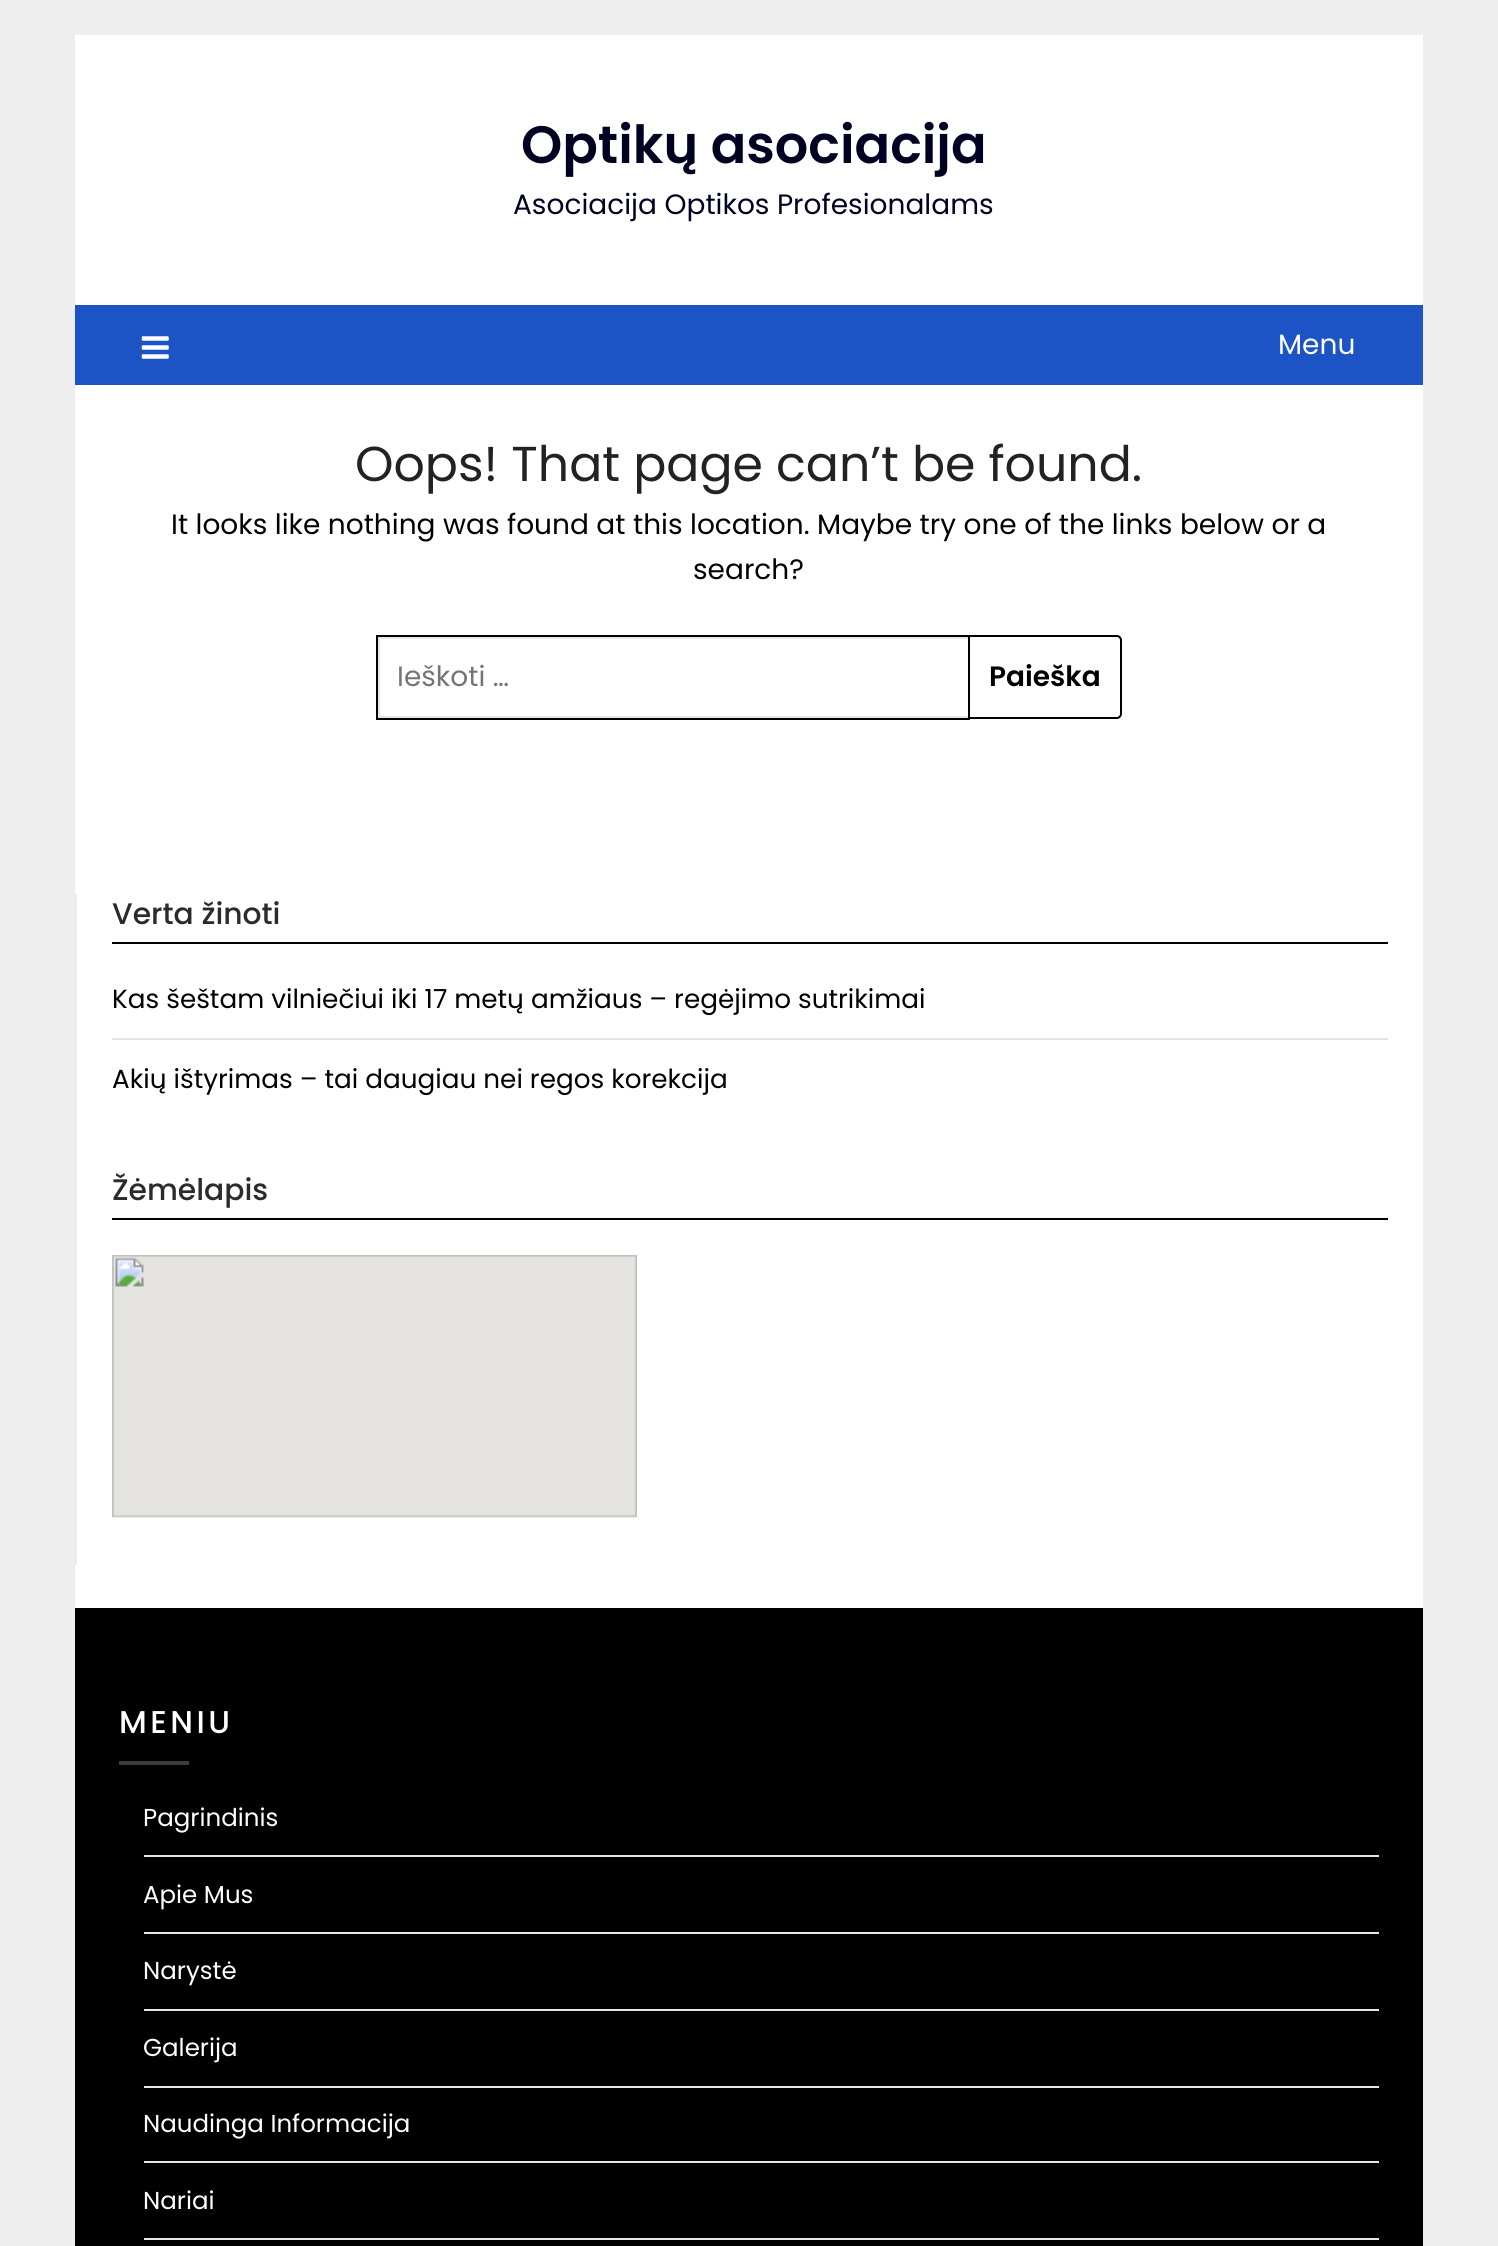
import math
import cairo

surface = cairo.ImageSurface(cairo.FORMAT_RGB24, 1498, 2246)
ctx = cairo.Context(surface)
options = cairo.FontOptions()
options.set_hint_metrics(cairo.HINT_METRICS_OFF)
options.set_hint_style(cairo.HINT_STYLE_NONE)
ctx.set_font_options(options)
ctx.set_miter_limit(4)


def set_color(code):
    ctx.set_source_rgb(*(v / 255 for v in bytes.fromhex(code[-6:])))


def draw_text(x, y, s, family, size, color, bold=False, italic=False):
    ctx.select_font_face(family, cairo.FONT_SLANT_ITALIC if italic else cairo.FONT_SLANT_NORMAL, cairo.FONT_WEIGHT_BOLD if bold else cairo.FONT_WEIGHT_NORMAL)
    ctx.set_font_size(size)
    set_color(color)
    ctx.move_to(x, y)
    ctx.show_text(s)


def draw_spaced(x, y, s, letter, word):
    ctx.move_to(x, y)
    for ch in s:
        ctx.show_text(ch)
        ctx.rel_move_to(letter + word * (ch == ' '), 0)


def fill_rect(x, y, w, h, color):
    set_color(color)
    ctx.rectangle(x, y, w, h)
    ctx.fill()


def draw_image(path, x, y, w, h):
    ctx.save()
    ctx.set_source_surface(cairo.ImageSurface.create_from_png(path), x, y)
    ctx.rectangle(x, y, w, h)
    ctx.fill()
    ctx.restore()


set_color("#eeeeee")
ctx.paint()
fill_rect(75, 35, 1348, 270, "#ffffff")
draw_text(521, 163, "Optikų asociacija", "Poppins SemiBold", 52.5, "#000222")
draw_text(513, 214, "Asociacija Optikos Profesionalams", "Poppins", 28, "#000222")
fill_rect(75, 305, 1348, 80, "#1c53c5")
draw_image("assets/img1.png", 141, 336, 28, 23)
draw_text(1278, 354, "Menu", "Poppins", 28, "#ffffff")
fill_rect(75, 385, 1348, 1223, "#ffffff")
draw_text(355, 481, "Oops! That page can’t be found.", "Poppins", 49, "#222222")
draw_text(171, 534, "It looks like nothing was found at this location. Maybe try one of the links below or a", "Poppins", 28, "#000000")
draw_text(693, 579, "search?", "Poppins", 28, "#000000")
fill_rect(376, 635, 594, 2, "#000000")
fill_rect(376, 718, 594, 2, "#000000")
fill_rect(376, 635, 2, 84, "#000000")
ctx.rectangle(379, 638, 590, 79)
set_color("#e5e6e9")
ctx.stroke()
draw_text(397, 686, "Ieškoti …", "Poppins", 28, "#757575")
ctx.new_path()
ctx.move_to(969, 636)
ctx.line_to(1117, 636)
ctx.curve_to(1119, 636, 1121, 638, 1121, 640)
ctx.line_to(1121, 714)
ctx.curve_to(1121, 716, 1119, 718, 1117, 718)
ctx.line_to(969, 718)
ctx.close_path()
set_color("#000000")
ctx.stroke()
draw_text(989, 686, "Paieška", "Poppins SemiBold", 28, "#000000")
fill_rect(75, 894, 2, 671, "#ececec")
fill_rect(112, 942, 1276, 2, "#000000")
draw_text(112, 924, "Verta žinoti", "Poppins Medium", 29.75, "#2b2b2b")
fill_rect(112, 1038, 1276, 2, "#e6e6e6")
draw_text(112, 1008, "Kas šeštam vilniečiui iki 17 metų amžiaus – regėjimo sutrikimai", "Poppins", 26.25, "#000000")
draw_text(112, 1088, "Akių ištyrimas – tai daugiau nei regos korekcija", "Poppins", 26.25, "#000000")
fill_rect(112, 1218, 1276, 2, "#000000")
draw_text(112, 1200, "Žėmėlapis", "Poppins Medium", 29.75, "#2b2b2b")
draw_image("assets/img2.png", 112, 1255, 525, 263)
fill_rect(75, 1608, 1348, 638, "#000000")
ctx.set_font_size(31.5)
set_color("#ffffff")
draw_spaced(119, 1733, "MENIU", 3.5, 0)
fill_rect(119, 1761, 70, 4, "#3d3d3d")
fill_rect(144, 1855, 1235, 2, "#e6e6e6")
draw_text(143, 1826, "Pagrindinis", "Poppins", 24.5, "#ffffff")
fill_rect(144, 1932, 1235, 2, "#e6e6e6")
draw_text(143, 1903, "Apie Mus", "Poppins", 24.5, "#ffffff")
fill_rect(144, 2009, 1235, 2, "#e6e6e6")
draw_text(143, 1979, "Narystė", "Poppins", 24.5, "#ffffff")
fill_rect(144, 2086, 1235, 2, "#e6e6e6")
draw_text(143, 2056, "Galerija", "Poppins", 24.5, "#ffffff")
fill_rect(144, 2161, 1235, 2, "#e6e6e6")
draw_text(143, 2132, "Naudinga Informacija", "Poppins", 24.5, "#ffffff")
fill_rect(144, 2238, 1235, 2, "#e6e6e6")
draw_text(143, 2209, "Nariai", "Poppins", 24.5, "#ffffff")
surface.write_to_png("output.png")
